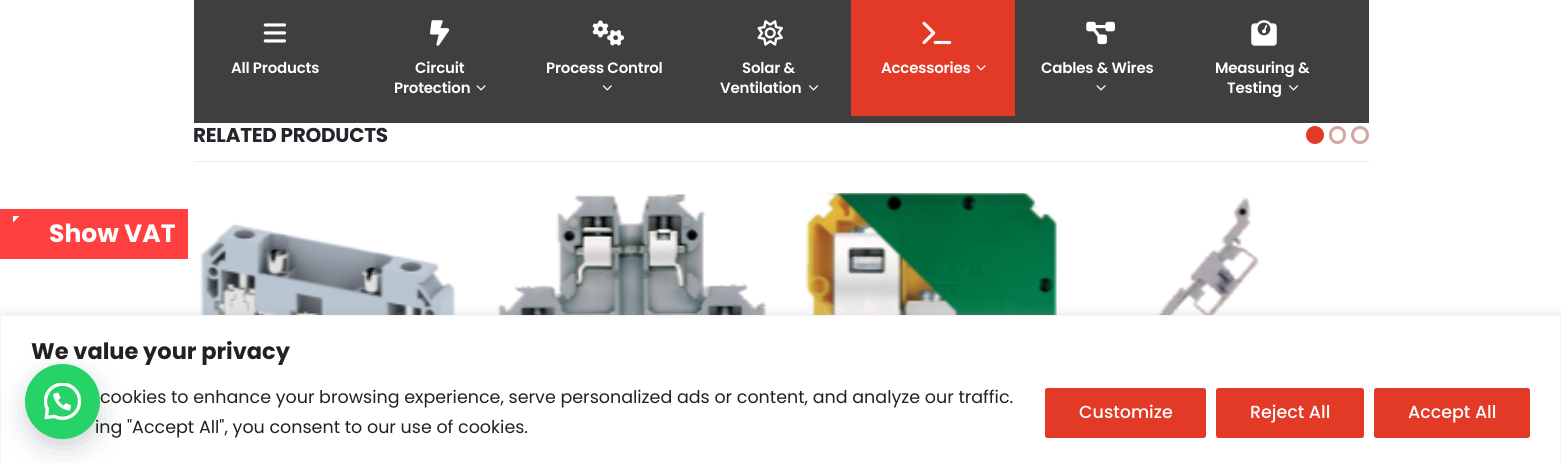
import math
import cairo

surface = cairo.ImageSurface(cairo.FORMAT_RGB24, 1561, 463)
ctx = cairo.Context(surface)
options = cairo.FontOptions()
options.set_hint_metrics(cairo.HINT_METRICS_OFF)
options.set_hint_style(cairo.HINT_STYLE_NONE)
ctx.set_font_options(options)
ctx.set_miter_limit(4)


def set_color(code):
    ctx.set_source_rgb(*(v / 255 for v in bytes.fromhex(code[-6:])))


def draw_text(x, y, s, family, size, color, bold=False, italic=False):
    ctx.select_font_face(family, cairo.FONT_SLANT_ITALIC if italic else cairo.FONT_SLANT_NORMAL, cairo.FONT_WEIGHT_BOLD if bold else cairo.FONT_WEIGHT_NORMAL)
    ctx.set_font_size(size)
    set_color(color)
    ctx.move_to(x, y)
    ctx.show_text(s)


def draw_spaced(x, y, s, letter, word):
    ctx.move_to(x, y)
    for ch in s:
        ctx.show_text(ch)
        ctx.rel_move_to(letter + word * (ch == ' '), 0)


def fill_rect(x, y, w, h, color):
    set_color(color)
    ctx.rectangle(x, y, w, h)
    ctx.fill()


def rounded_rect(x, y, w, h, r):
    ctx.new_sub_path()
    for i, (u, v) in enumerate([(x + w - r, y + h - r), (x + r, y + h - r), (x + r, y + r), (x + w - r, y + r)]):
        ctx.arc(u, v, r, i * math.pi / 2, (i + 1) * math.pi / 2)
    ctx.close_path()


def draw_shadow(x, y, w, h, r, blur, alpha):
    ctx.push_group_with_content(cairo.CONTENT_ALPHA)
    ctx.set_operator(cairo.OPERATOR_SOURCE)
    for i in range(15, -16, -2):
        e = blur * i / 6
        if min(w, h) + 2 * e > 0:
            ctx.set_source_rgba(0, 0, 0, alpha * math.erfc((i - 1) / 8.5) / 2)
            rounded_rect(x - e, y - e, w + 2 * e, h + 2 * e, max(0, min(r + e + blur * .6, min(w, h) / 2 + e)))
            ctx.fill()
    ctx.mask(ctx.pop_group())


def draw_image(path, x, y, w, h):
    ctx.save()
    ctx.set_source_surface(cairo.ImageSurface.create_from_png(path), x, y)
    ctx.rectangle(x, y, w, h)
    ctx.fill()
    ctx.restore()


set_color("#ffffff")
ctx.paint()
fill_rect(194, 0, 1175, 123, "#403f3f")
draw_image("assets/img1.png", 263, 23, 23, 20)
ctx.select_font_face("Poppins SemiBold")
ctx.set_font_size(15)
set_color("#ffffff")
draw_spaced(231, 73, "All Products", -0.2, 0)
draw_image("assets/img2.png", 430, 20, 20, 26)
draw_spaced(415, 73, "Circuit", -0.2, 0)
draw_spaced(394, 93, "Protection", -0.2, 0)
draw_image("assets/img3.png", 476, 85, 10, 6)
draw_image("assets/img4.png", 592, 20, 32, 26)
draw_spaced(546, 73, "Process Control", -0.2, 0)
draw_image("assets/img5.png", 602, 85, 10, 6)
draw_image("assets/img6.png", 757, 20, 26, 26)
draw_spaced(742, 73, "Solar &", -0.2, 0)
draw_spaced(720, 93, "Ventilation", -0.2, 0)
draw_image("assets/img7.png", 809, 85, 10, 6)
fill_rect(851, 0, 164, 116, "#e23a26")
draw_image("assets/img8.png", 922, 21, 30, 24)
set_color("#ffffff")
draw_spaced(881, 73, "Accessories", -0.2, 0)
draw_image("assets/img9.png", 976, 65, 10, 6)
draw_image("assets/img10.png", 1086, 21, 29, 24)
draw_spaced(1041, 73, "Cables & Wires", -0.2, 0)
draw_image("assets/img3.png", 1096, 85, 10, 6)
draw_image("assets/img11.png", 1251, 20, 26, 26)
draw_spaced(1215, 73, "Measuring &", -0.2, 0)
draw_spaced(1227, 93, "Testing", -0.2, 0)
draw_image("assets/img7.png", 1289, 85, 10, 6)
set_color("#e23a26")
ctx.arc(1315, 135, 7.5, 0, 2 * math.pi)
ctx.fill_preserve()
ctx.set_line_width(3)
ctx.stroke()
rounded_rect(1330.5, 127.5, 14, 15, 7)
set_color("#d2a6a1")
ctx.stroke()
ctx.arc(1360, 135, 7.5, 0, 2 * math.pi)
ctx.stroke()
draw_image("assets/img12.png", 199, 223, 256, 92)
draw_image("assets/img13.png", 497, 194, 269, 121)
draw_image("assets/img14.png", 805, 193, 252, 122)
draw_image("assets/img15.png", 1156, 197, 104, 118)
fill_rect(194, 161, 1175, 1, "#ebebeb")
ctx.select_font_face("Poppins", cairo.FONT_SLANT_NORMAL, cairo.FONT_WEIGHT_BOLD)
ctx.set_font_size(20)
set_color("#222529")
draw_spaced(193, 142, "RELATED PRODUCTS", -0.25, 0)
fill_rect(0, 209, 188, 50, "#ff4040")
draw_image("assets/img16.png", 13, 216, 7, 7)
draw_text(49, 242, "Show VAT", "Poppins", 25, "#ffffff", bold=True)
set_color("#acabab")
draw_shadow(0, 314, 1561, 149, 0, 6, 0.3)
set_color("#ffffff")
ctx.rectangle(0.5, 315.5, 1560, 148)
ctx.fill_preserve()
set_color("#f4f4f4")
ctx.set_line_width(1)
ctx.stroke()
set_color("#2d3e4f")
draw_shadow(31, 380, 63, 63, 31.5, 15.5, 0.3)
draw_text(31, 359, "We value your privacy", "Poppins", 22.5, "#212121", bold=True)
draw_text(95, 433, "ing \"Accept All\", you consent to our use of cookies.", "Poppins", 17.5, "#212121")
set_color("#25d366")
ctx.new_path()
ctx.arc(62.5, 401.5, 37.5, 0, 2 * math.pi)
ctx.fill()
draw_image("assets/img17.png", 44, 383, 37, 37)
draw_text(100, 403, "cookies to enhance your browsing experience, serve personalized ads or content, and analyze our traffic.", "Poppins", 17.5, "#212121")
set_color("#e23a26")
rounded_rect(1045, 388, 161, 50, 2.5)
ctx.fill()
draw_text(1079, 418, "Customize", "Poppins Medium", 17.5, "#ffffff")
set_color("#e23a26")
rounded_rect(1216, 388, 148, 50, 2.5)
ctx.fill()
draw_text(1250, 418, "Reject All", "Poppins Medium", 17.5, "#ffffff")
set_color("#e23a26")
rounded_rect(1374, 388, 156, 50, 2.5)
ctx.fill()
draw_text(1408, 418, "Accept All", "Poppins Medium", 17.5, "#ffffff")
surface.write_to_png("output.png")
